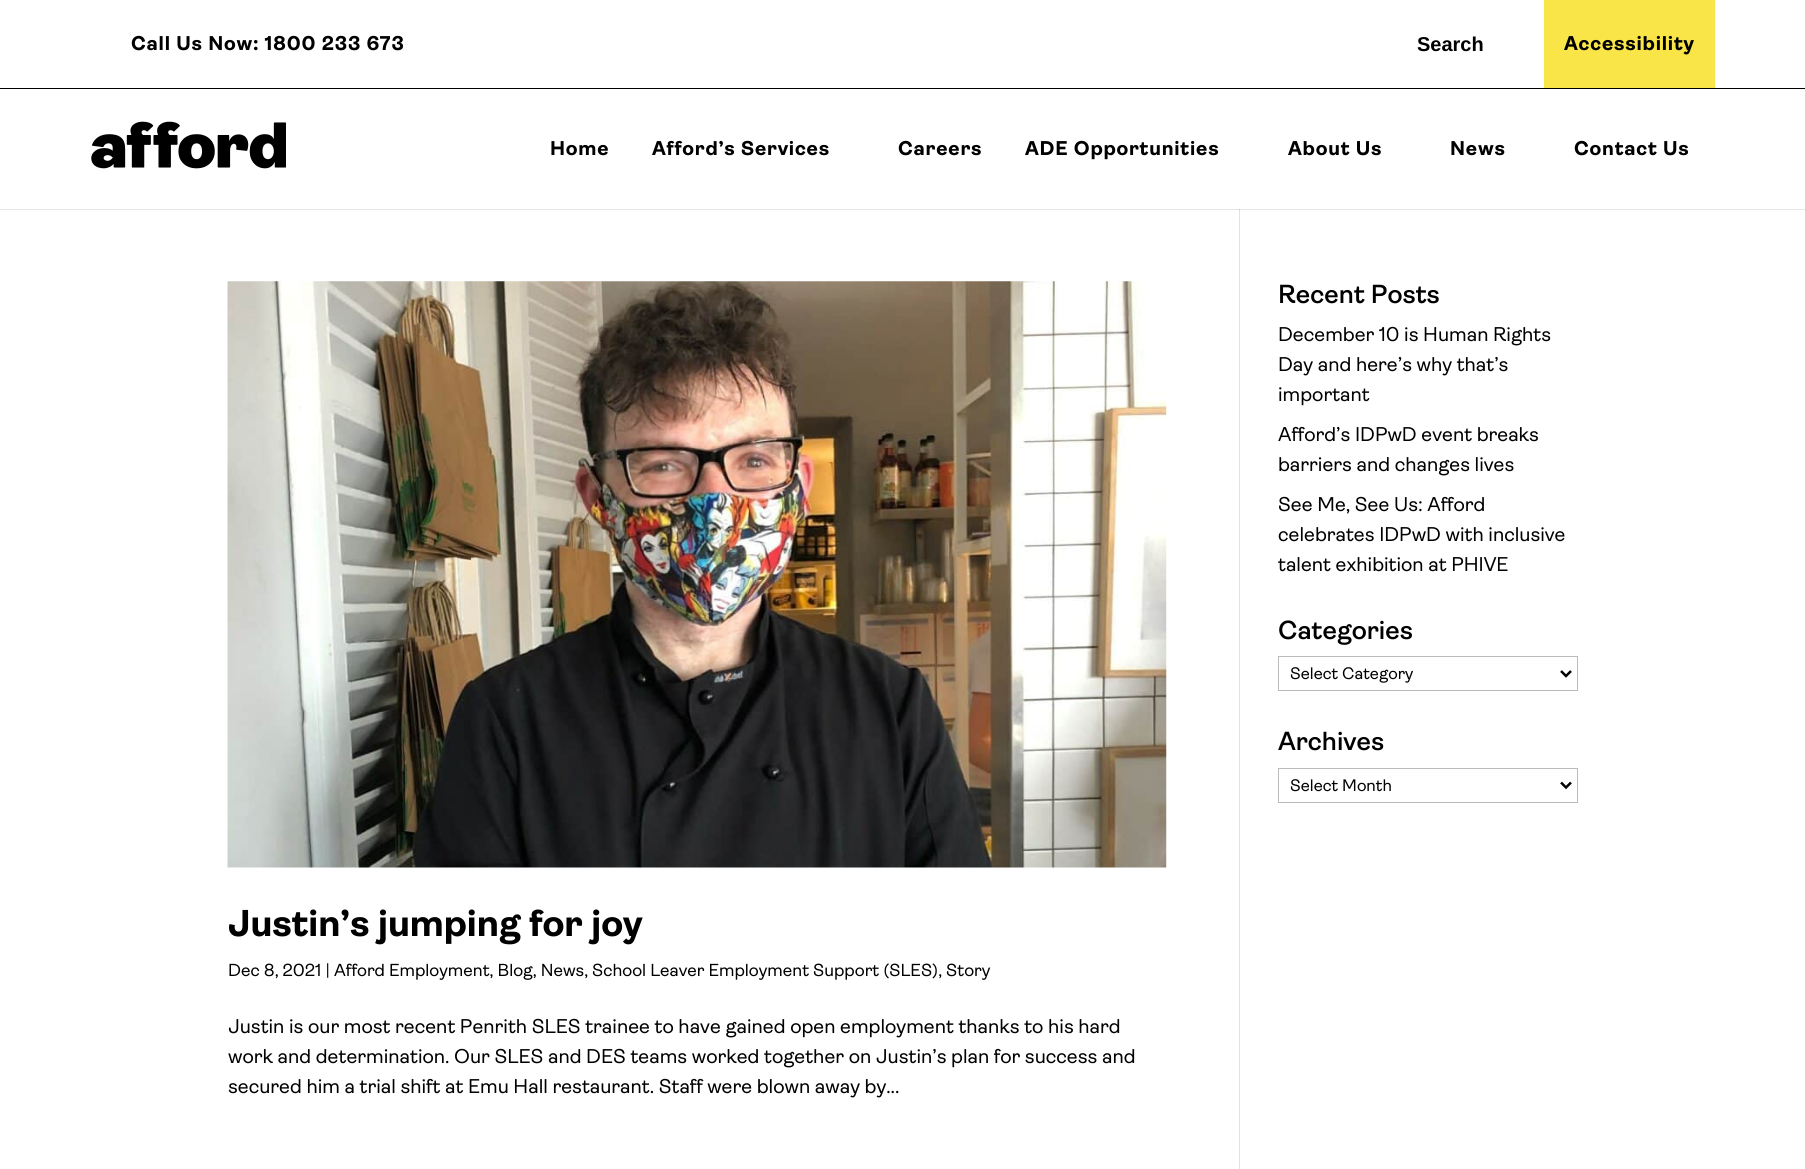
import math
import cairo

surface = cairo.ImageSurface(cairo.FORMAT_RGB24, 1805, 1169)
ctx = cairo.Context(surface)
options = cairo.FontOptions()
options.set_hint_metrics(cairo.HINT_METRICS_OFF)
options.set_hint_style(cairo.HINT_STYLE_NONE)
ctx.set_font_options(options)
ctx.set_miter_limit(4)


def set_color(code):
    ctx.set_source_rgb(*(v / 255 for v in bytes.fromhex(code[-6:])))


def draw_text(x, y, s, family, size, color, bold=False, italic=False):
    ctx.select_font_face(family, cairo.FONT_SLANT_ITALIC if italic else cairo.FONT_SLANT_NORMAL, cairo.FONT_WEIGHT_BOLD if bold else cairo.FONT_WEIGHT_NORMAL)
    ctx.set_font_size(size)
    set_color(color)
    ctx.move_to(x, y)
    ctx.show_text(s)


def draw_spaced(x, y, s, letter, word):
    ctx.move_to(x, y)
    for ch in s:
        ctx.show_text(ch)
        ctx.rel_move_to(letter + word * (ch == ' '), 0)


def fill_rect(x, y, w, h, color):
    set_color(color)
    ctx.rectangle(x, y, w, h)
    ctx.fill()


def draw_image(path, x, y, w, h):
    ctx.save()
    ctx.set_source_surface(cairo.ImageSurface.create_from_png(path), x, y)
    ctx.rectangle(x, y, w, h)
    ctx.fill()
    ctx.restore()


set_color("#ffffff")
ctx.paint()
fill_rect(0, 209, 1805, 1, "#e6e6e6")
fill_rect(0, 88, 1805, 1, "#000000")
ctx.select_font_face("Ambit", cairo.FONT_SLANT_NORMAL, cairo.FONT_WEIGHT_BOLD)
ctx.set_font_size(20)
draw_spaced(131, 50, "Call Us Now: 1800 233 673", 0.8, 0)
draw_text(1417, 51, "Search", "Liberation Sans", 20, "#000000", bold=True)
fill_rect(1544, 0, 171, 88, "#f9e547")
ctx.select_font_face("Ambit", cairo.FONT_SLANT_NORMAL, cairo.FONT_WEIGHT_BOLD)
set_color("#000000")
draw_spaced(1564, 50, "Accessibility", 0.8, 0)
draw_image("assets/img1.png", 91, 121, 195, 48)
draw_spaced(550, 155, "Home", 0.8, 0)
draw_spaced(652, 155, "Afford’s Services", 0.8, 0)
draw_spaced(898, 155, "Careers", 0.8, 0)
draw_spaced(1025, 155, "ADE Opportunities", 0.8, 0)
draw_spaced(1288, 155, "About Us", 0.8, 0)
draw_spaced(1450, 155, "News", 0.8, 0)
draw_spaced(1574, 155, "Contact Us", 0.8, 0)
fill_rect(1239, 209, 1, 960, "#e2e2e2")
fill_rect(1239, 209, 1, 1, "#cbcbcb")
draw_text(1278, 303, "Recent Posts", "Ambit SemiBold", 26.25, "#000000")
draw_text(1278, 341, "December 10 is Human Rights", "Ambit", 20, "#000000")
draw_text(1278, 371, "Day and here’s why that’s", "Ambit", 20, "#000000")
draw_text(1278, 401, "important", "Ambit", 20, "#000000")
draw_text(1278, 441, "Afford’s IDPwD event breaks", "Ambit", 20, "#000000")
draw_text(1278, 471, "barriers and changes lives", "Ambit", 20, "#000000")
draw_text(1278, 511, "See Me, See Us: Afford", "Ambit", 20, "#000000")
draw_text(1278, 541, "celebrates IDPwD with inclusive", "Ambit", 20, "#000000")
draw_text(1278, 571, "talent exhibition at PHIVE", "Ambit", 20, "#000000")
draw_text(1278, 639, "Categories", "Ambit SemiBold", 26.25, "#000000")
ctx.rectangle(1278.5, 656.5, 299, 34)
set_color("#bbbbbb")
ctx.set_line_width(1)
ctx.stroke()
ctx.new_path()
ctx.move_to(1561, 671)
ctx.line_to(1566, 676)
ctx.line_to(1571, 671)
set_color("#000000")
ctx.set_line_width(2.5)
ctx.stroke()
draw_text(1290, 679, "Select Category", "Ambit", 16.75, "#000000")
draw_text(1278, 750, "Archives", "Ambit SemiBold", 26.25, "#000000")
ctx.rectangle(1278.5, 768.5, 299, 34)
set_color("#bbbbbb")
ctx.set_line_width(1)
ctx.stroke()
ctx.new_path()
ctx.move_to(1561, 782.5)
ctx.line_to(1566, 787.5)
ctx.line_to(1571, 782.5)
set_color("#000000")
ctx.set_line_width(2.5)
ctx.stroke()
draw_text(1290, 791, "Select Month", "Ambit", 16.75, "#000000")
draw_image("assets/img2.png", 227, 281, 940, 587)
draw_text(228, 936, "Justin’s jumping for joy", "Ambit", 37.5, "#000000", bold=True)
draw_text(228, 976, "Dec 8, 2021 | Afford Employment, Blog, News, School Leaver Employment Support (SLES), Story", "Ambit", 17.5, "#000000")
draw_text(228, 1033, "Justin is our most recent Penrith SLES trainee to have gained open employment thanks to his hard", "Ambit", 20, "#000000")
draw_text(228, 1063, "work and determination. Our SLES and DES teams worked together on Justin’s plan for success and", "Ambit", 20, "#000000")
draw_text(228, 1093, "secured him a trial shift at Emu Hall restaurant. Staff were blown away by...", "Ambit", 20, "#000000")
surface.write_to_png("output.png")
